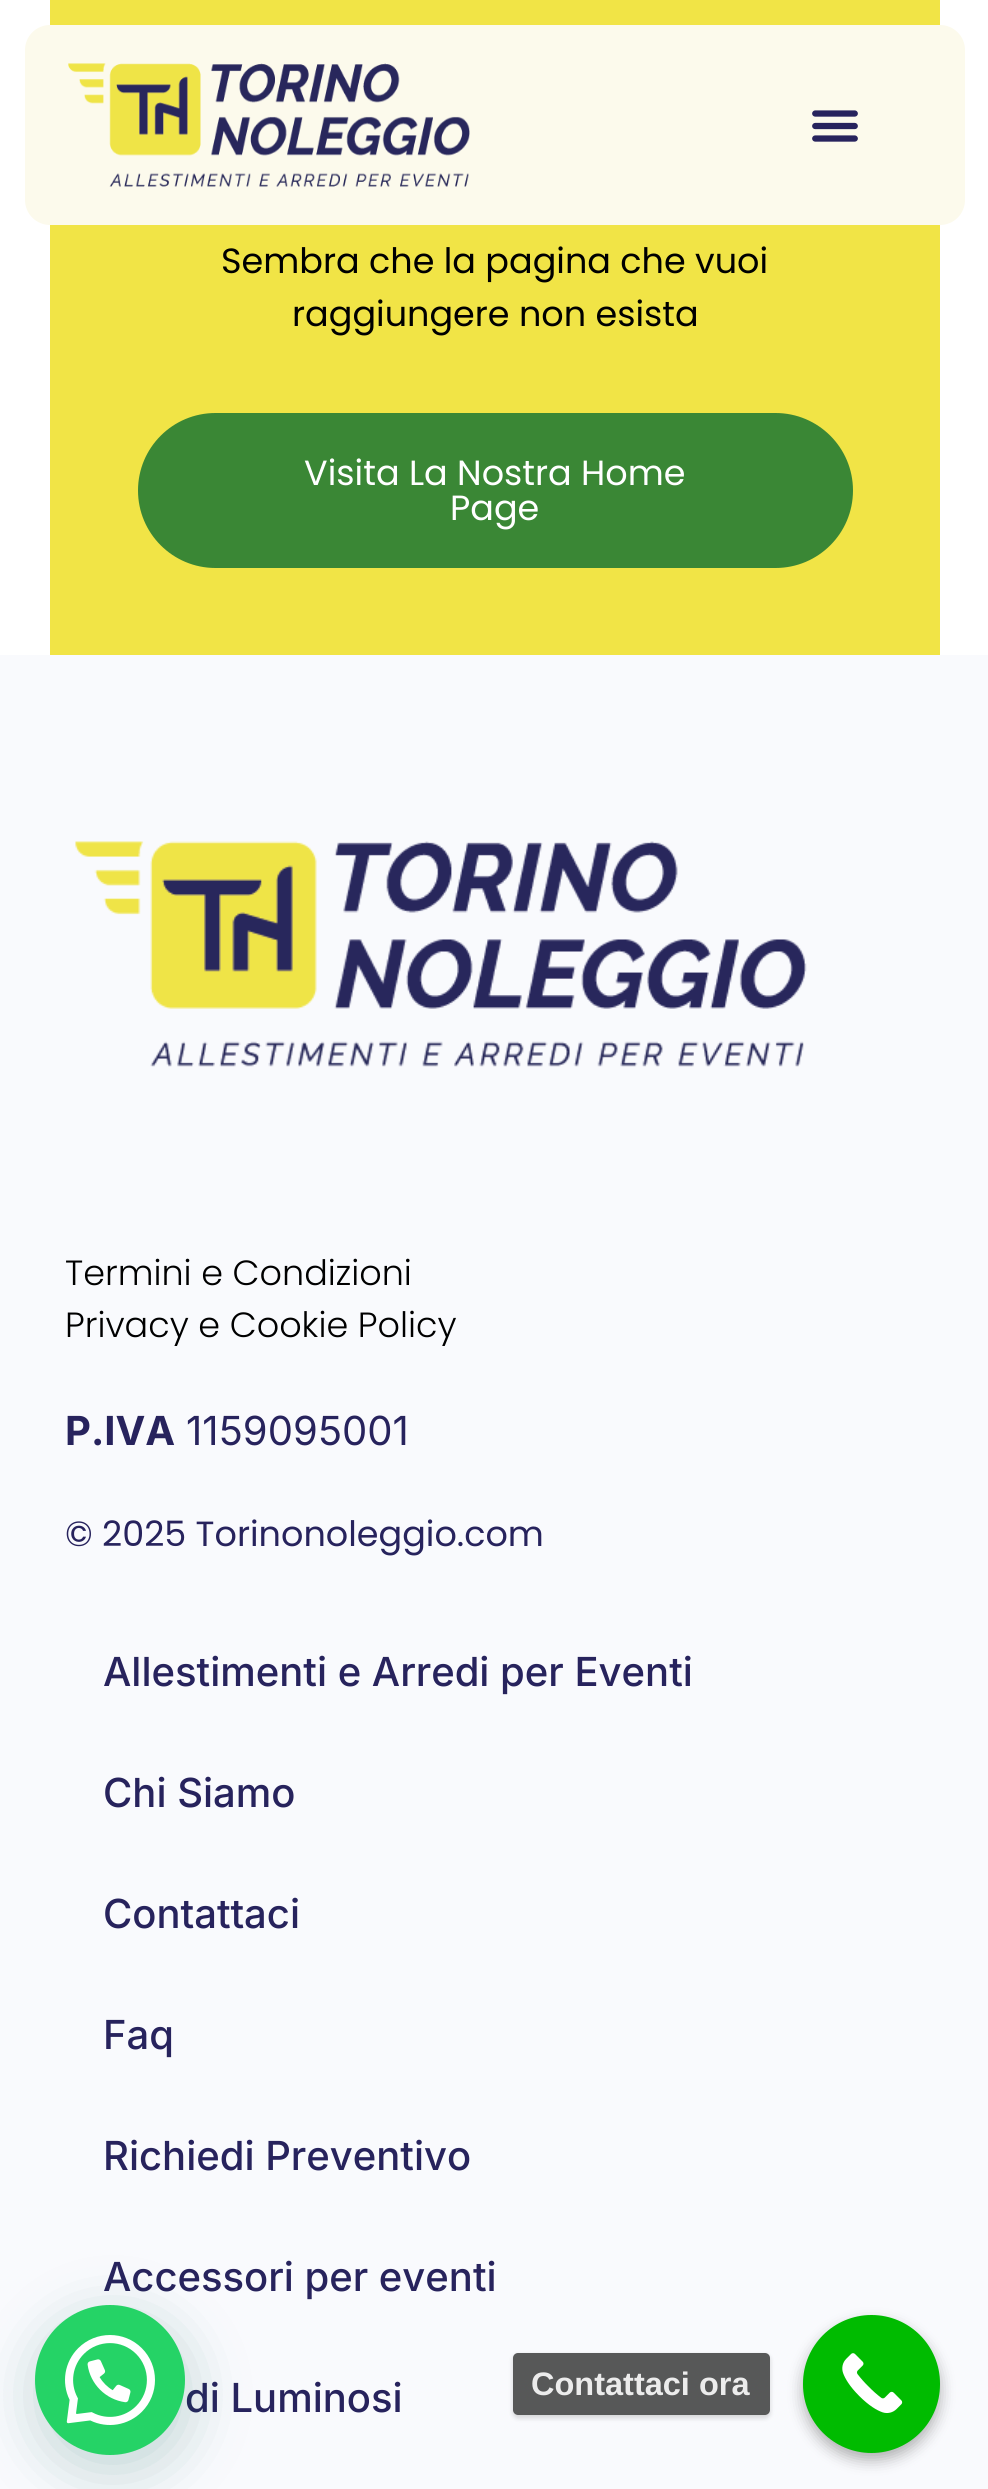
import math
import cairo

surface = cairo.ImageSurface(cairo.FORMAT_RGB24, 988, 2489)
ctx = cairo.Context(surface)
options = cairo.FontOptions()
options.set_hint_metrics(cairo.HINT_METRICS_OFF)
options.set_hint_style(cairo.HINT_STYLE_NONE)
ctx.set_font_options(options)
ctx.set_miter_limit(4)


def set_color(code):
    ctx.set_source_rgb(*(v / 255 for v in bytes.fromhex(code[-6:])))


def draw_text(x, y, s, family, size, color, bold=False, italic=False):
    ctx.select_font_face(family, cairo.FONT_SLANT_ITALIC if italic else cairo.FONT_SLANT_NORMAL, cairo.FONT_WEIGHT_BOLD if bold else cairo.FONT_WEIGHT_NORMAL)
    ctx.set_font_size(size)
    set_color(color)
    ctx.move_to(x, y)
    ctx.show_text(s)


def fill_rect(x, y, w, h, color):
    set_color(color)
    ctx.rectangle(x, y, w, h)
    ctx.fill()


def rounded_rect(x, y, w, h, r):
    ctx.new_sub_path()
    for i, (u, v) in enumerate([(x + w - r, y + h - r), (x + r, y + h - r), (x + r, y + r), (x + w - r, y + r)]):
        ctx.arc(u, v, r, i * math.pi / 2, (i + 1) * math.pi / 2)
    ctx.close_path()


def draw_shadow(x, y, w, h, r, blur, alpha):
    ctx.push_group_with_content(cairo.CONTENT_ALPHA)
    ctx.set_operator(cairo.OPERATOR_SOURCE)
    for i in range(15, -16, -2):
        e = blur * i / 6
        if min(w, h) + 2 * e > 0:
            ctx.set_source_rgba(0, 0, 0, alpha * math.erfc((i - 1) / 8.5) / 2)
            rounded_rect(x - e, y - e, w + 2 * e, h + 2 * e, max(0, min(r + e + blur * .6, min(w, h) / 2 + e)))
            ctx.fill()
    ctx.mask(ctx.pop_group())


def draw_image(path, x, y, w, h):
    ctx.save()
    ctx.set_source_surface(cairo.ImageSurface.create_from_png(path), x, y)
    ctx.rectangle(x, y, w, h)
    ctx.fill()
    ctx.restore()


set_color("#ffffff")
ctx.paint()
fill_rect(50, 0, 890, 655, "#f1e446")
set_color("#fcfaec")
rounded_rect(25, 25, 940, 200, 25)
ctx.fill()
draw_image("assets/img1.png", 68, 63, 402, 124)
draw_image("assets/img2.png", 812, 110, 46, 32)
draw_text(221, 273, "Sembra che la pagina che vuoi", "Poppins", 35, "#000000")
draw_text(292, 326, "raggiungere non esista", "Poppins", 35, "#000000")
set_color("#3a8735")
rounded_rect(139.5, 414.5, 712, 152, 76)
ctx.fill_preserve()
ctx.set_line_width(3)
ctx.stroke()
draw_text(304, 485, "Visita La Nostra Home", "Poppins", 35, "#ffffff")
draw_text(450, 520, "Page", "Poppins", 35, "#ffffff")
fill_rect(0, 655, 988, 1834, "#f9fafd")
draw_image("assets/img3.png", 75, 841, 732, 226)
draw_text(65, 1285, "Termini e Condizioni", "Poppins Light", 35, "#000000")
draw_text(65, 1337, "Privacy e Cookie Policy", "Poppins Light", 35, "#000000")
draw_text(65, 1445, "P.IVA", "Inter", 40, "#27235d", bold=True)
draw_text(186, 1445, "1159095001", "Inter", 40, "#27235d")
draw_text(65, 1546, "© 2025 Torinonoleggio.com", "Poppins", 35, "#27235d")
draw_text(103, 1686, "Allestimenti e Arredi per Eventi", "Inter Medium", 40, "#27235d")
draw_text(103, 1807, "Chi Siamo", "Inter Medium", 40, "#27235d")
draw_text(103, 1928, "Contattaci", "Inter Medium", 40, "#27235d")
draw_text(103, 2049, "Faq", "Inter Medium", 40, "#27235d")
draw_text(103, 2170, "Richiedi Preventivo", "Inter Medium", 40, "#27235d")
draw_text(103, 2291, "Accessori per eventi", "Inter Medium", 40, "#27235d")
draw_text(185, 2412, "di Luminosi", "Inter Medium", 40, "#27235d")
set_color("#075e54")
draw_shadow(38, 2320, 150, 150, 75, 30, 0.24)
set_color("#25d366")
ctx.arc(110, 2380, 75, 0, 2 * math.pi)
ctx.fill()
draw_image("assets/img4.png", 65, 2335, 90, 90)
set_color("#000000")
draw_shadow(803, 2323, 137, 137, 68.5, 7.5, 0.3)
set_color("#00bb00")
rounded_rect(803, 2315, 137, 138, 68.5)
ctx.fill()
draw_image("assets/img5.png", 842, 2353, 61, 60)
ctx.save()
ctx.set_fill_rule(cairo.FILL_RULE_EVEN_ODD)
ctx.new_path()
ctx.move_to(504, 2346)
ctx.line_to(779, 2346)
ctx.line_to(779, 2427)
ctx.line_to(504, 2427)
ctx.close_path()
ctx.move_to(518, 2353)
ctx.line_to(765, 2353)
ctx.curve_to(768, 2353, 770, 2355, 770, 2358)
ctx.line_to(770, 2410)
ctx.curve_to(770, 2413, 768, 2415, 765, 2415)
ctx.line_to(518, 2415)
ctx.curve_to(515, 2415, 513, 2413, 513, 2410)
ctx.line_to(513, 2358)
ctx.curve_to(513, 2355, 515, 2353, 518, 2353)
ctx.close_path()
ctx.clip()
set_color("#000000")
draw_shadow(513, 2355, 257, 63, 5, 2.5, 0.15)
ctx.restore()
ctx.set_source_rgba(0.275, 0.275, 0.275, 0.9)
rounded_rect(513, 2353, 257, 62, 5)
ctx.fill()
draw_text(531, 2395, "Contattaci ora", "Liberation Sans", 32.5, "#ececec", bold=True)
surface.write_to_png("output.png")
